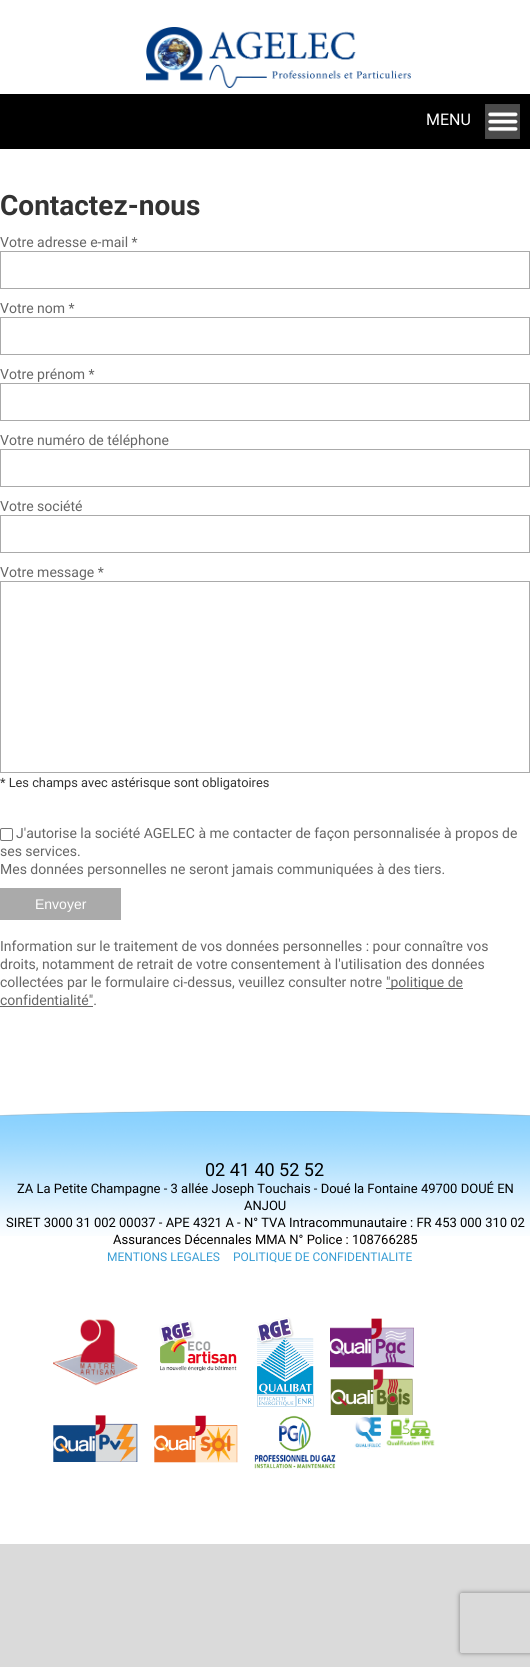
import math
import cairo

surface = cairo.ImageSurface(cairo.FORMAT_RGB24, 530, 1667)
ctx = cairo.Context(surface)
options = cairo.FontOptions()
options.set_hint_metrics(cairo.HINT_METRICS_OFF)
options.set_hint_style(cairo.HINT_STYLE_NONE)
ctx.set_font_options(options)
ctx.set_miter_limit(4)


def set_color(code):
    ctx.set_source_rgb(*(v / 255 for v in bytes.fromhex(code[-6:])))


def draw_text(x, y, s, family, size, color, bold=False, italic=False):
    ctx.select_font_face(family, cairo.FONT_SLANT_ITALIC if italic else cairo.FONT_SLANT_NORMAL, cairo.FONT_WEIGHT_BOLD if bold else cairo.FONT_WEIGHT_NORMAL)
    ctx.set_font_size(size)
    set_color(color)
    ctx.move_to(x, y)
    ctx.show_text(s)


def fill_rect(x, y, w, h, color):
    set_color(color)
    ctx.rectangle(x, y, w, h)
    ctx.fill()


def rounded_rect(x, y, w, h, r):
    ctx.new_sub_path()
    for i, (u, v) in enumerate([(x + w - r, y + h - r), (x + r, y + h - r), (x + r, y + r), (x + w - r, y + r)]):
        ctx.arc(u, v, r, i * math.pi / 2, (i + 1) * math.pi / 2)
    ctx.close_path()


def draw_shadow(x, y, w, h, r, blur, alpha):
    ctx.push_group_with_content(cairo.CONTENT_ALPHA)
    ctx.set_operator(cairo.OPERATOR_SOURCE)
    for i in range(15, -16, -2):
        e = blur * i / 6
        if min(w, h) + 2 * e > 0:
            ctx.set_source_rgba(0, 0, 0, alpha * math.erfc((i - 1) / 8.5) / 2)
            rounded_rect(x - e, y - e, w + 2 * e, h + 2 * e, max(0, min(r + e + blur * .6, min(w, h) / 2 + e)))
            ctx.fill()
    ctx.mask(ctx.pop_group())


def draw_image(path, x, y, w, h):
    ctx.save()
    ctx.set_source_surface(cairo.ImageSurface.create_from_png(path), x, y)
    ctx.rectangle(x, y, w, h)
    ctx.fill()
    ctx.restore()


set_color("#dadada")
ctx.paint()
fill_rect(0, 0, 530, 94, "#ffffff")
draw_image("assets/img1.png", 146, 27, 265, 61)
fill_rect(0, 94, 530, 55, "#000000")
draw_text(426, 125, "MENU", "Roboto", 16, "#ffffff")
draw_image("assets/img2.png", 485, 104, 35, 35)
fill_rect(0, 149, 530, 1395, "#ffffff")
draw_text(0, 215, "Contactez-nous", "Roboto", 28, "#333333", bold=True)
draw_text(0, 247, "Votre adresse e-mail *", "Roboto", 14, "#666666")
ctx.rectangle(0.5, 251.5, 529, 37)
set_color("#aaaaaa")
ctx.set_line_width(1)
ctx.stroke()
draw_text(0, 313, "Votre nom *", "Roboto", 14, "#666666")
ctx.rectangle(0.5, 317.5, 529, 37)
set_color("#aaaaaa")
ctx.stroke()
draw_text(0, 379, "Votre prénom *", "Roboto", 14, "#666666")
ctx.rectangle(0.5, 383.5, 529, 37)
set_color("#aaaaaa")
ctx.stroke()
draw_text(0, 445, "Votre numéro de téléphone", "Roboto", 14, "#666666")
ctx.rectangle(0.5, 449.5, 529, 37)
set_color("#aaaaaa")
ctx.stroke()
draw_text(0, 511, "Votre société", "Roboto", 14, "#666666")
ctx.rectangle(0.5, 515.5, 529, 37)
set_color("#aaaaaa")
ctx.stroke()
draw_text(0, 577, "Votre message *", "Roboto", 14, "#666666")
ctx.rectangle(0.5, 581.5, 529, 191)
set_color("#aaaaaa")
ctx.stroke()
draw_text(0, 787, "* Les champs avec astérisque sont obligatoires", "Roboto", 12.8, "#333333")
rounded_rect(0.5, 828.5, 12, 12, 1.5)
set_color("#767676")
ctx.stroke()
draw_text(16, 838, "J'autorise la société AGELEC à me contacter de façon personnalisée à propos de", "Roboto", 14, "#666666")
draw_text(0, 856, "ses services.", "Roboto", 14, "#666666")
draw_text(0, 874, "Mes données personnelles ne seront jamais communiquées à des tiers.", "Roboto", 14, "#666666")
fill_rect(0, 888, 121, 32, "#aaaaaa")
draw_text(35, 909, "Envoyer", "Liberation Sans", 14, "#ffffff")
draw_text(0, 951, "Information sur le traitement de vos données personnelles : pour connaître vos", "Roboto", 14, "#666666")
draw_text(0, 969, "droits, notamment de retrait de votre consentement à l'utilisation des données", "Roboto", 14, "#666666")
draw_text(0, 987, "collectées par le formulaire ci-dessus, veuillez consulter notre", "Roboto", 14, "#666666")
fill_rect(386, 988, 77, 1, "#666666")
draw_text(386, 987, "\"politique de", "Roboto", 14, "#666666")
draw_text(0, 1005, "confidentialité\".", "Roboto", 14, "#666666")
fill_rect(0, 1006, 93, 1, "#666666")
draw_image("assets/img3.png", 0, 1111, 530, 125)
draw_text(205, 1176, "02 41 40 52 52", "Roboto", 18, "#000000")
draw_text(17, 1193, "ZA La Petite Champagne - 3 allée Joseph Touchais - Doué la Fontaine 49700 DOUÉ EN", "Roboto", 13, "#000000")
draw_text(244, 1210, "ANJOU", "Roboto", 13, "#000000")
draw_text(6, 1227, "SIRET 3000 31 002 00037 - APE 4321 A - N° TVA Intracommunautaire : FR 453 000 310 02", "Roboto", 13, "#000000")
draw_text(113, 1244, "Assurances Décennales MMA N° Police : 108766285", "Roboto", 13, "#000000")
draw_text(107, 1261, "MENTIONS LEGALES", "Roboto", 12, "#389dd4")
draw_text(233, 1261, "POLITIQUE DE CONFIDENTIALITE", "Roboto", 12, "#389dd4")
draw_image("assets/img4.png", 53, 1319, 85, 67)
draw_image("assets/img5.png", 159, 1320, 78, 51)
draw_image("assets/img6.png", 257, 1317, 57, 90)
draw_image("assets/img7.png", 330, 1318, 84, 50)
draw_image("assets/img8.png", 330, 1369, 83, 46)
draw_image("assets/img9.png", 53, 1415, 85, 47)
draw_image("assets/img10.png", 154, 1415, 84, 48)
draw_image("assets/img11.png", 254, 1415, 82, 54)
draw_image("assets/img12.png", 354, 1416, 81, 33)
ctx.save()
ctx.set_fill_rule(cairo.FILL_RULE_EVEN_ODD)
ctx.new_path()
ctx.move_to(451, 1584)
ctx.line_to(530, 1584)
ctx.line_to(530, 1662)
ctx.line_to(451, 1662)
ctx.close_path()
ctx.move_to(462, 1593)
ctx.line_to(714, 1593)
ctx.curve_to(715, 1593, 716, 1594, 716, 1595)
ctx.line_to(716, 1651)
ctx.curve_to(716, 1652, 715, 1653, 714, 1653)
ctx.line_to(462, 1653)
ctx.curve_to(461, 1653, 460, 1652, 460, 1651)
ctx.line_to(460, 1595)
ctx.curve_to(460, 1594, 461, 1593, 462, 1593)
ctx.close_path()
ctx.clip()
set_color("#808080")
draw_shadow(460, 1593, 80, 60, 2, 2.5, 1)
ctx.restore()
surface.write_to_png("output.png")
